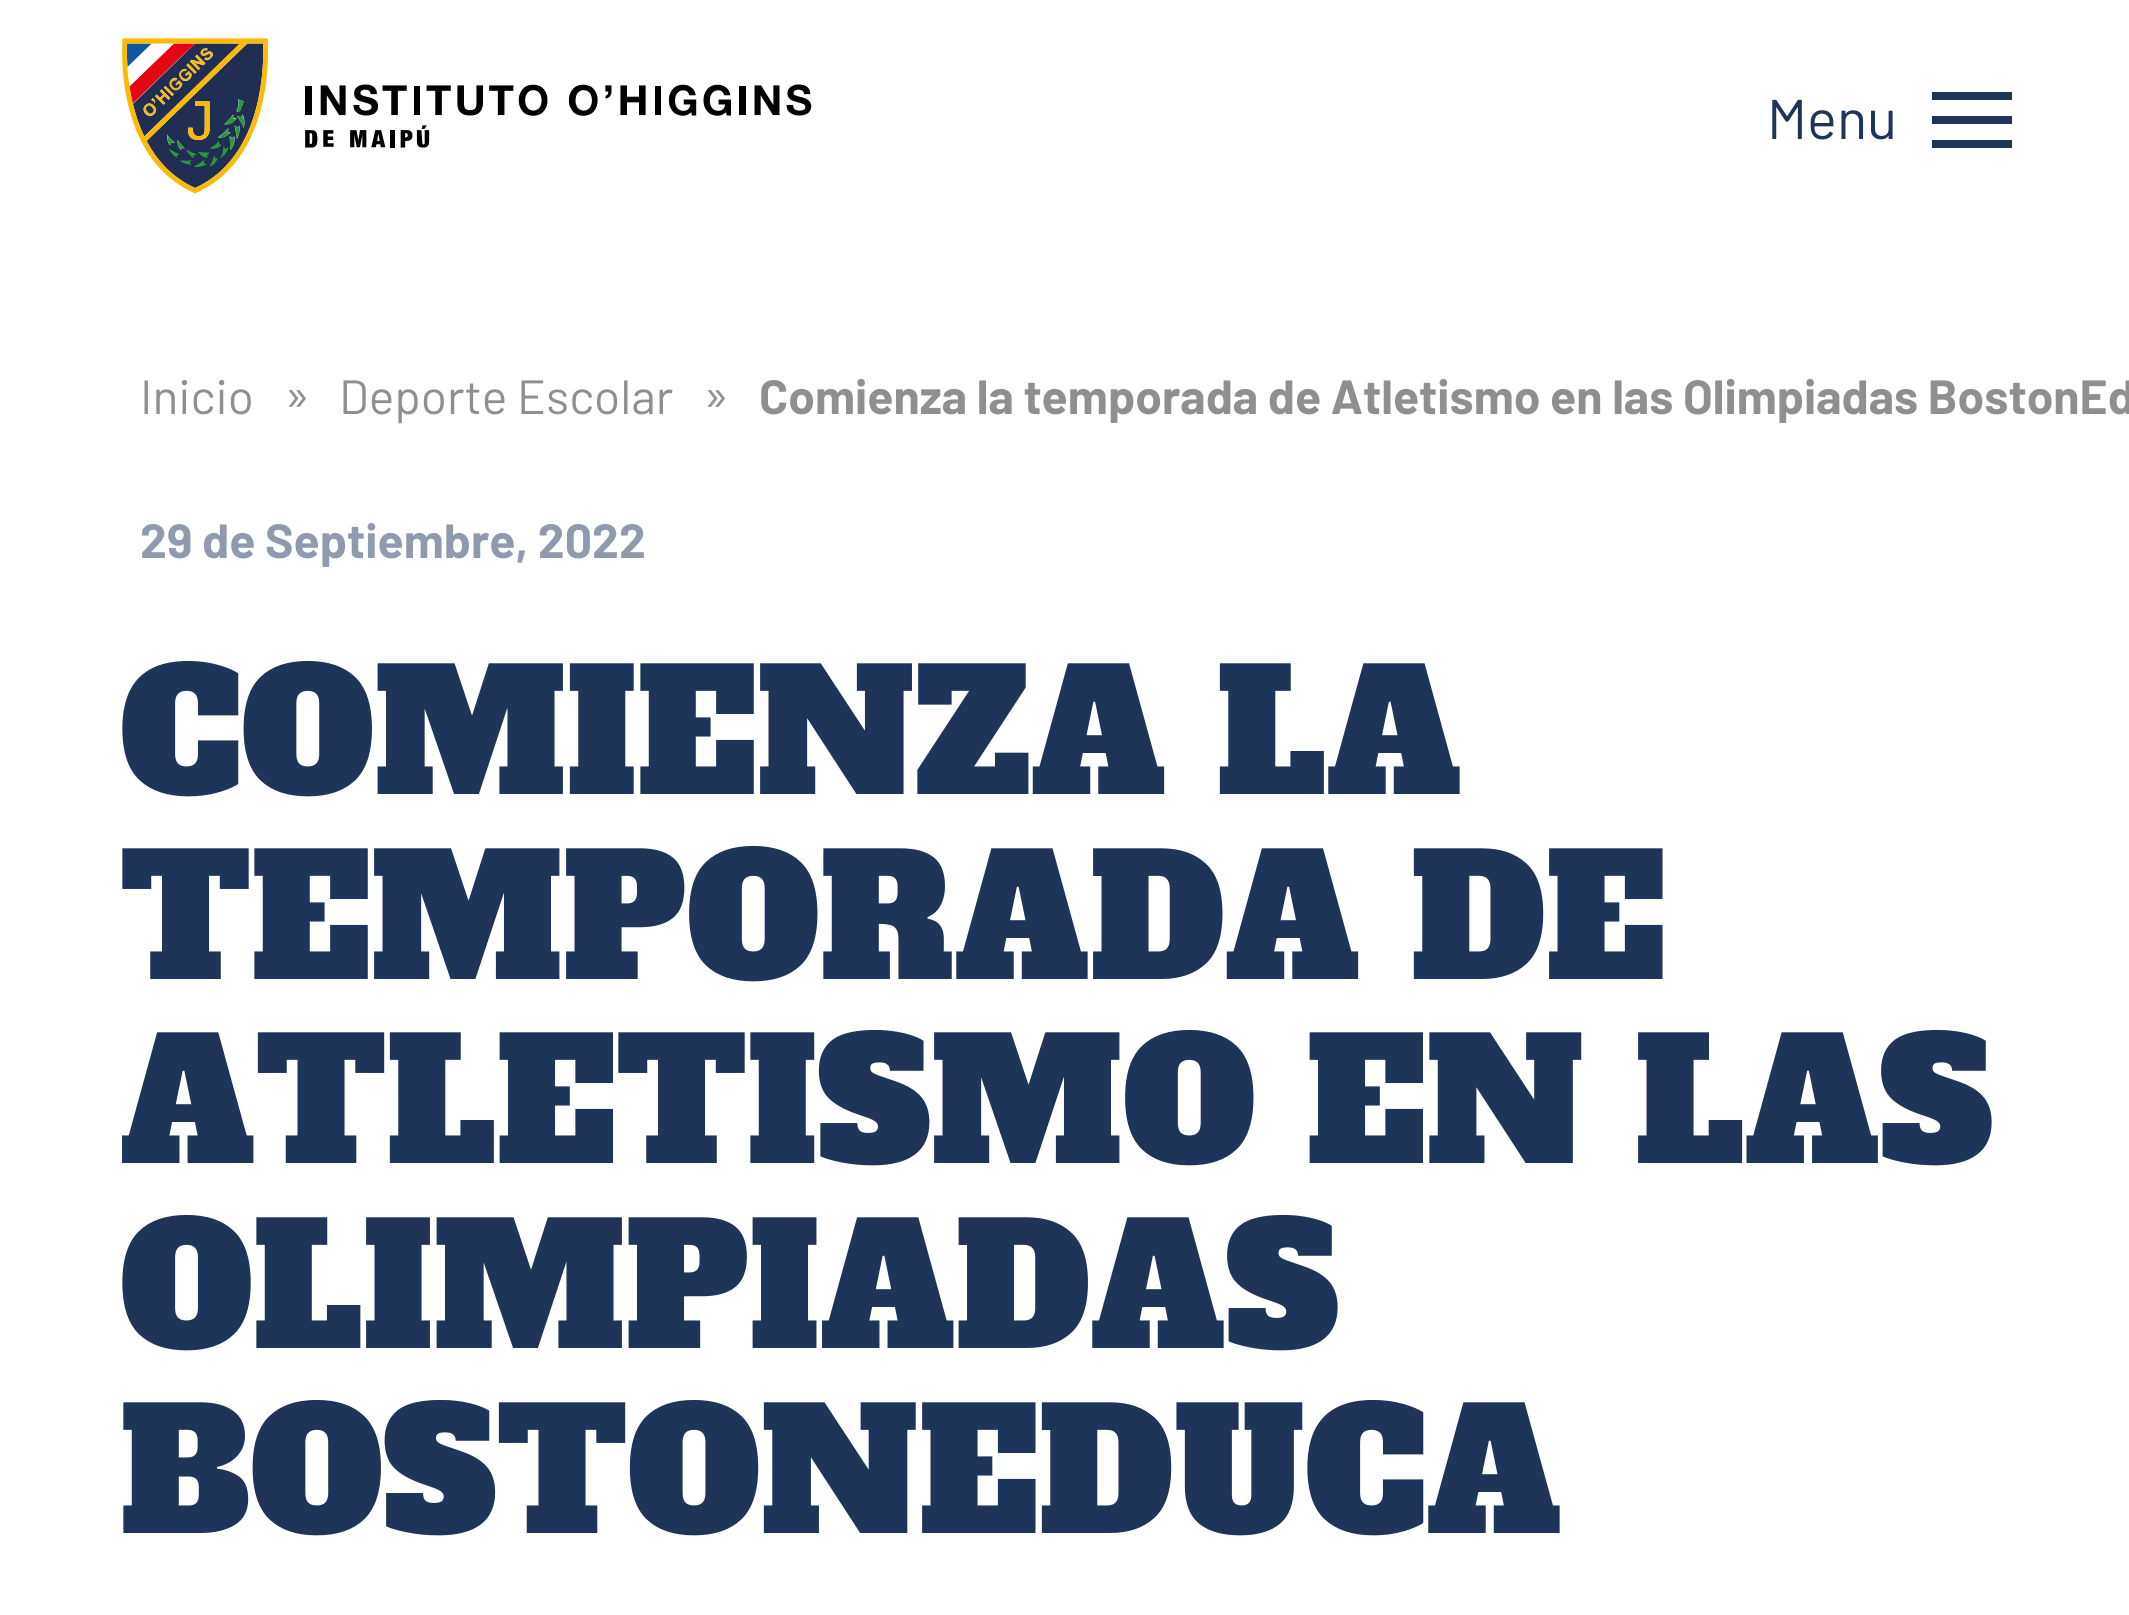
import math
import cairo

surface = cairo.ImageSurface(cairo.FORMAT_RGB24, 2129, 1615)
ctx = cairo.Context(surface)
options = cairo.FontOptions()
options.set_hint_metrics(cairo.HINT_METRICS_OFF)
options.set_hint_style(cairo.HINT_STYLE_NONE)
ctx.set_font_options(options)
ctx.set_miter_limit(4)


def set_color(code):
    ctx.set_source_rgb(*(v / 255 for v in bytes.fromhex(code[-6:])))


def draw_text(x, y, s, family, size, color, bold=False, italic=False):
    ctx.select_font_face(family, cairo.FONT_SLANT_ITALIC if italic else cairo.FONT_SLANT_NORMAL, cairo.FONT_WEIGHT_BOLD if bold else cairo.FONT_WEIGHT_NORMAL)
    ctx.set_font_size(size)
    set_color(color)
    ctx.move_to(x, y)
    ctx.show_text(s)


def fill_rect(x, y, w, h, color):
    set_color(color)
    ctx.rectangle(x, y, w, h)
    ctx.fill()


def draw_image(path, x, y, w, h):
    ctx.save()
    ctx.set_source_surface(cairo.ImageSurface.create_from_png(path), x, y)
    ctx.rectangle(x, y, w, h)
    ctx.fill()
    ctx.restore()


set_color("#ffffff")
ctx.paint()
draw_image("assets/img1.png", 122, 38, 690, 156)
draw_text(1767, 139, "Menu", "Barlow", 56, "#1f3459")
fill_rect(1932, 92, 80, 8, "#1f3459")
fill_rect(1932, 116, 80, 8, "#1f3459")
fill_rect(1932, 140, 80, 8, "#1f3459")
draw_text(140, 414, "Inicio", "Barlow", 48, "#8e8f8e")
draw_text(284, 412, "»", "Barlow", 48, "#8e8f8e")
draw_text(339, 414, "Deporte Escolar", "Barlow", 48, "#8e8f8e")
draw_text(703, 412, "»", "Barlow", 48, "#8e8f8e")
draw_text(759, 414, "Comienza la temporada de Atletismo en las Olimpiadas BostonEd", "Barlow", 48, "#8e8f8e", bold=True)
draw_text(140, 558, "29 de Septiembre, 2022", "Barlow", 48, "#8f9aac", bold=True)
draw_text(120, 794, "COMIENZA LA", "Alfa Slab One", 168, "#1f3459")
draw_text(120, 979, "TEMPORADA DE", "Alfa Slab One", 168, "#1f3459")
draw_text(120, 1163, "ATLETISMO EN LAS", "Alfa Slab One", 168, "#1f3459")
draw_text(120, 1348, "OLIMPIADAS", "Alfa Slab One", 168, "#1f3459")
draw_text(120, 1533, "BOSTONEDUCA", "Alfa Slab One", 168, "#1f3459")
surface.write_to_png("output.png")
